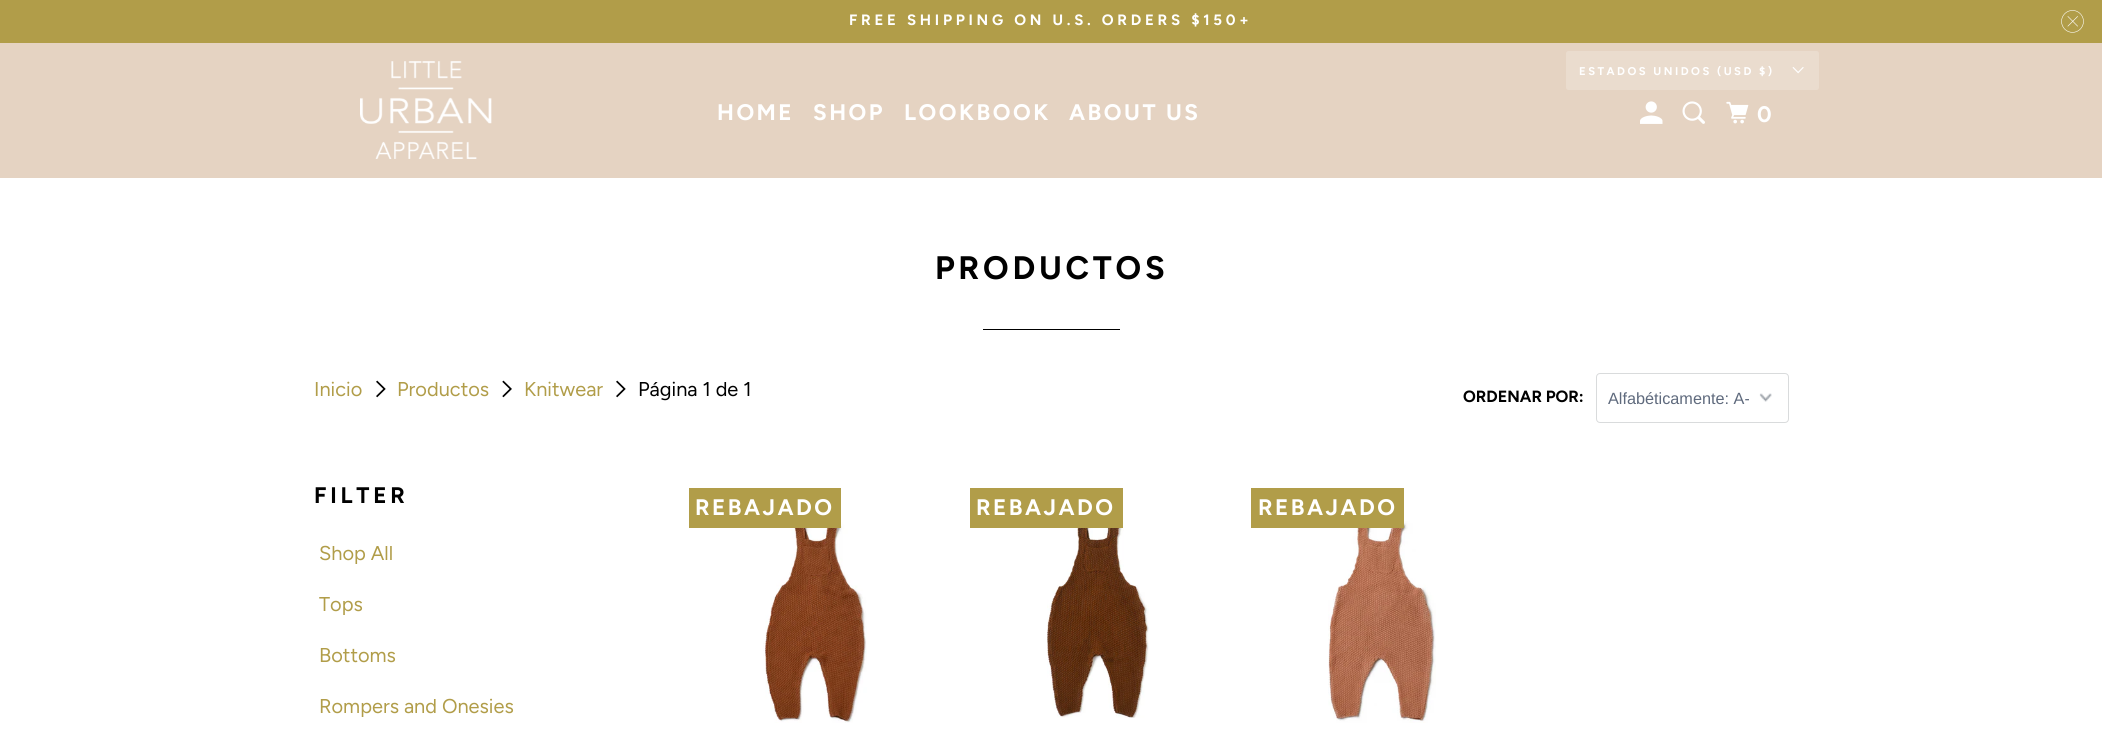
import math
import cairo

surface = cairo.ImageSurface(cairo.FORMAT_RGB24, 2102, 739)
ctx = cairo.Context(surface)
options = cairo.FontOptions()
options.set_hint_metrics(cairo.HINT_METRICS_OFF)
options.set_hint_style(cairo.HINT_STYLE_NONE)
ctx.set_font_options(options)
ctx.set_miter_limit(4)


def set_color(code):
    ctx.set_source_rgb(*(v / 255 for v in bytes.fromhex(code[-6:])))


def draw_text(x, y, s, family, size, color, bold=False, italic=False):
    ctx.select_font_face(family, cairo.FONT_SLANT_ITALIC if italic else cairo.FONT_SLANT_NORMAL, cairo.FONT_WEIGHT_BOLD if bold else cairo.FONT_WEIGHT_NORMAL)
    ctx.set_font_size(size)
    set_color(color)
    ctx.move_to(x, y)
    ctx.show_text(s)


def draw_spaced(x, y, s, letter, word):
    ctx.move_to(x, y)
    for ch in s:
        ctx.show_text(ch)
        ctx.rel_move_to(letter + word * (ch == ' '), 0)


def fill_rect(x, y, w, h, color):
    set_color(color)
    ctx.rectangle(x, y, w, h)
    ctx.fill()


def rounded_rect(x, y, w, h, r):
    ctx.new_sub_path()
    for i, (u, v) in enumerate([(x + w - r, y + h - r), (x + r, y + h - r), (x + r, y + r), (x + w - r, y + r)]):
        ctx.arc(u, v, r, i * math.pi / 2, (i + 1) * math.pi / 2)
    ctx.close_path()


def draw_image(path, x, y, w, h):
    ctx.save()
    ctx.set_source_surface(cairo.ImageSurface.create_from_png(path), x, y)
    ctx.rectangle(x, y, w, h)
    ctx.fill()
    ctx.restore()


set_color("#ffffff")
ctx.paint()
fill_rect(0, 0, 2102, 43, "#b19d49")
ctx.select_font_face("Figtree", cairo.FONT_SLANT_NORMAL, cairo.FONT_WEIGHT_BOLD)
ctx.set_font_size(15)
set_color("#ffffff")
draw_spaced(849, 25, "FREE SHIPPING ON U.S. ORDERS $150+", 3.75, 0)
draw_image("assets/img1.png", 2061, 10, 23, 23)
fill_rect(0, 43, 2102, 135, "#e5d3c2")
draw_image("assets/img2.png", 360, 61, 132, 98)
ctx.set_font_size(22.5)
set_color("#ffffff")
draw_spaced(717, 120, "HOME", 2.5, 0)
draw_spaced(813, 120, "SHOP", 2.5, 0)
draw_spaced(904, 120, "LOOKBOOK", 2.5, 0)
draw_spaced(1069, 120, "ABOUT US", 2.5, 0)
set_color("#eadcce")
rounded_rect(1566, 51, 253, 39, 2.5)
ctx.fill()
ctx.set_font_size(11.25)
set_color("#ffffff")
draw_spaced(1579, 75, "ESTADOS UNIDOS (USD $)", 2.5, 0)
draw_image("assets/img3.png", 1792, 67, 12, 7)
draw_image("assets/img4.png", 1640, 101, 23, 23)
draw_image("assets/img5.png", 1682, 101, 23, 23)
draw_image("assets/img6.png", 1726, 101, 23, 23)
ctx.set_font_size(22.5)
draw_spaced(1757, 122, "0", 2.5, 0)
ctx.set_font_size(32.5)
set_color("#000000")
draw_spaced(935, 279, "PRODUCTOS", 3.75, 0)
fill_rect(983, 329, 137, 1, "#000000")
draw_text(314, 396, "Inicio", "Figtree", 20, "#b19d49")
draw_image("assets/img7.png", 376, 380, 10, 18)
draw_text(397, 396, "Productos", "Figtree", 20, "#b19d49")
draw_image("assets/img8.png", 502, 380, 10, 18)
draw_text(524, 396, "Knitwear", "Figtree", 20, "#b19d49")
draw_image("assets/img7.png", 616, 380, 10, 18)
draw_text(638, 396, "Página 1 de 1", "Figtree", 20, "#000000")
draw_text(1463, 402, "ORDENAR POR:", "Figtree", 16.25, "#000000", bold=True)
draw_image("assets/img9.png", 1759, 393, 13, 9)
rounded_rect(1596.5, 373.5, 192, 49, 3.5)
set_color("#d9dbdc")
ctx.set_line_width(1)
ctx.stroke()
draw_text(1608, 404, "Alfabéticamente: A-", "Liberation Sans", 16.25, "#5f6a7d")
ctx.select_font_face("Figtree", cairo.FONT_SLANT_NORMAL, cairo.FONT_WEIGHT_BOLD)
ctx.set_font_size(22.5)
set_color("#000000")
draw_spaced(314, 503, "FILTER", 3.75, 0)
draw_text(319, 560, "Shop All", "Figtree", 20, "#b19d49")
draw_text(319, 611, "Tops", "Figtree", 20, "#b19d49")
draw_text(319, 662, "Bottoms", "Figtree", 20, "#b19d49")
draw_text(319, 713, "Rompers and Onesies", "Figtree", 20, "#b19d49")
draw_image("assets/img10.png", 763, 521, 104, 202)
fill_rect(689, 488, 152, 40, "#b19d49")
ctx.select_font_face("Figtree", cairo.FONT_SLANT_NORMAL, cairo.FONT_WEIGHT_BOLD)
ctx.set_font_size(22.5)
set_color("#ffffff")
draw_spaced(695, 515, "REBAJADO", 2.5, 0)
draw_image("assets/img11.png", 1047, 518, 102, 200)
fill_rect(970, 488, 153, 40, "#b19d49")
set_color("#ffffff")
draw_spaced(976, 515, "REBAJADO", 2.5, 0)
draw_image("assets/img12.png", 1328, 521, 108, 202)
fill_rect(1251, 488, 153, 40, "#b19d49")
set_color("#ffffff")
draw_spaced(1258, 515, "REBAJADO", 2.5, 0)
surface.write_to_png("output.png")
